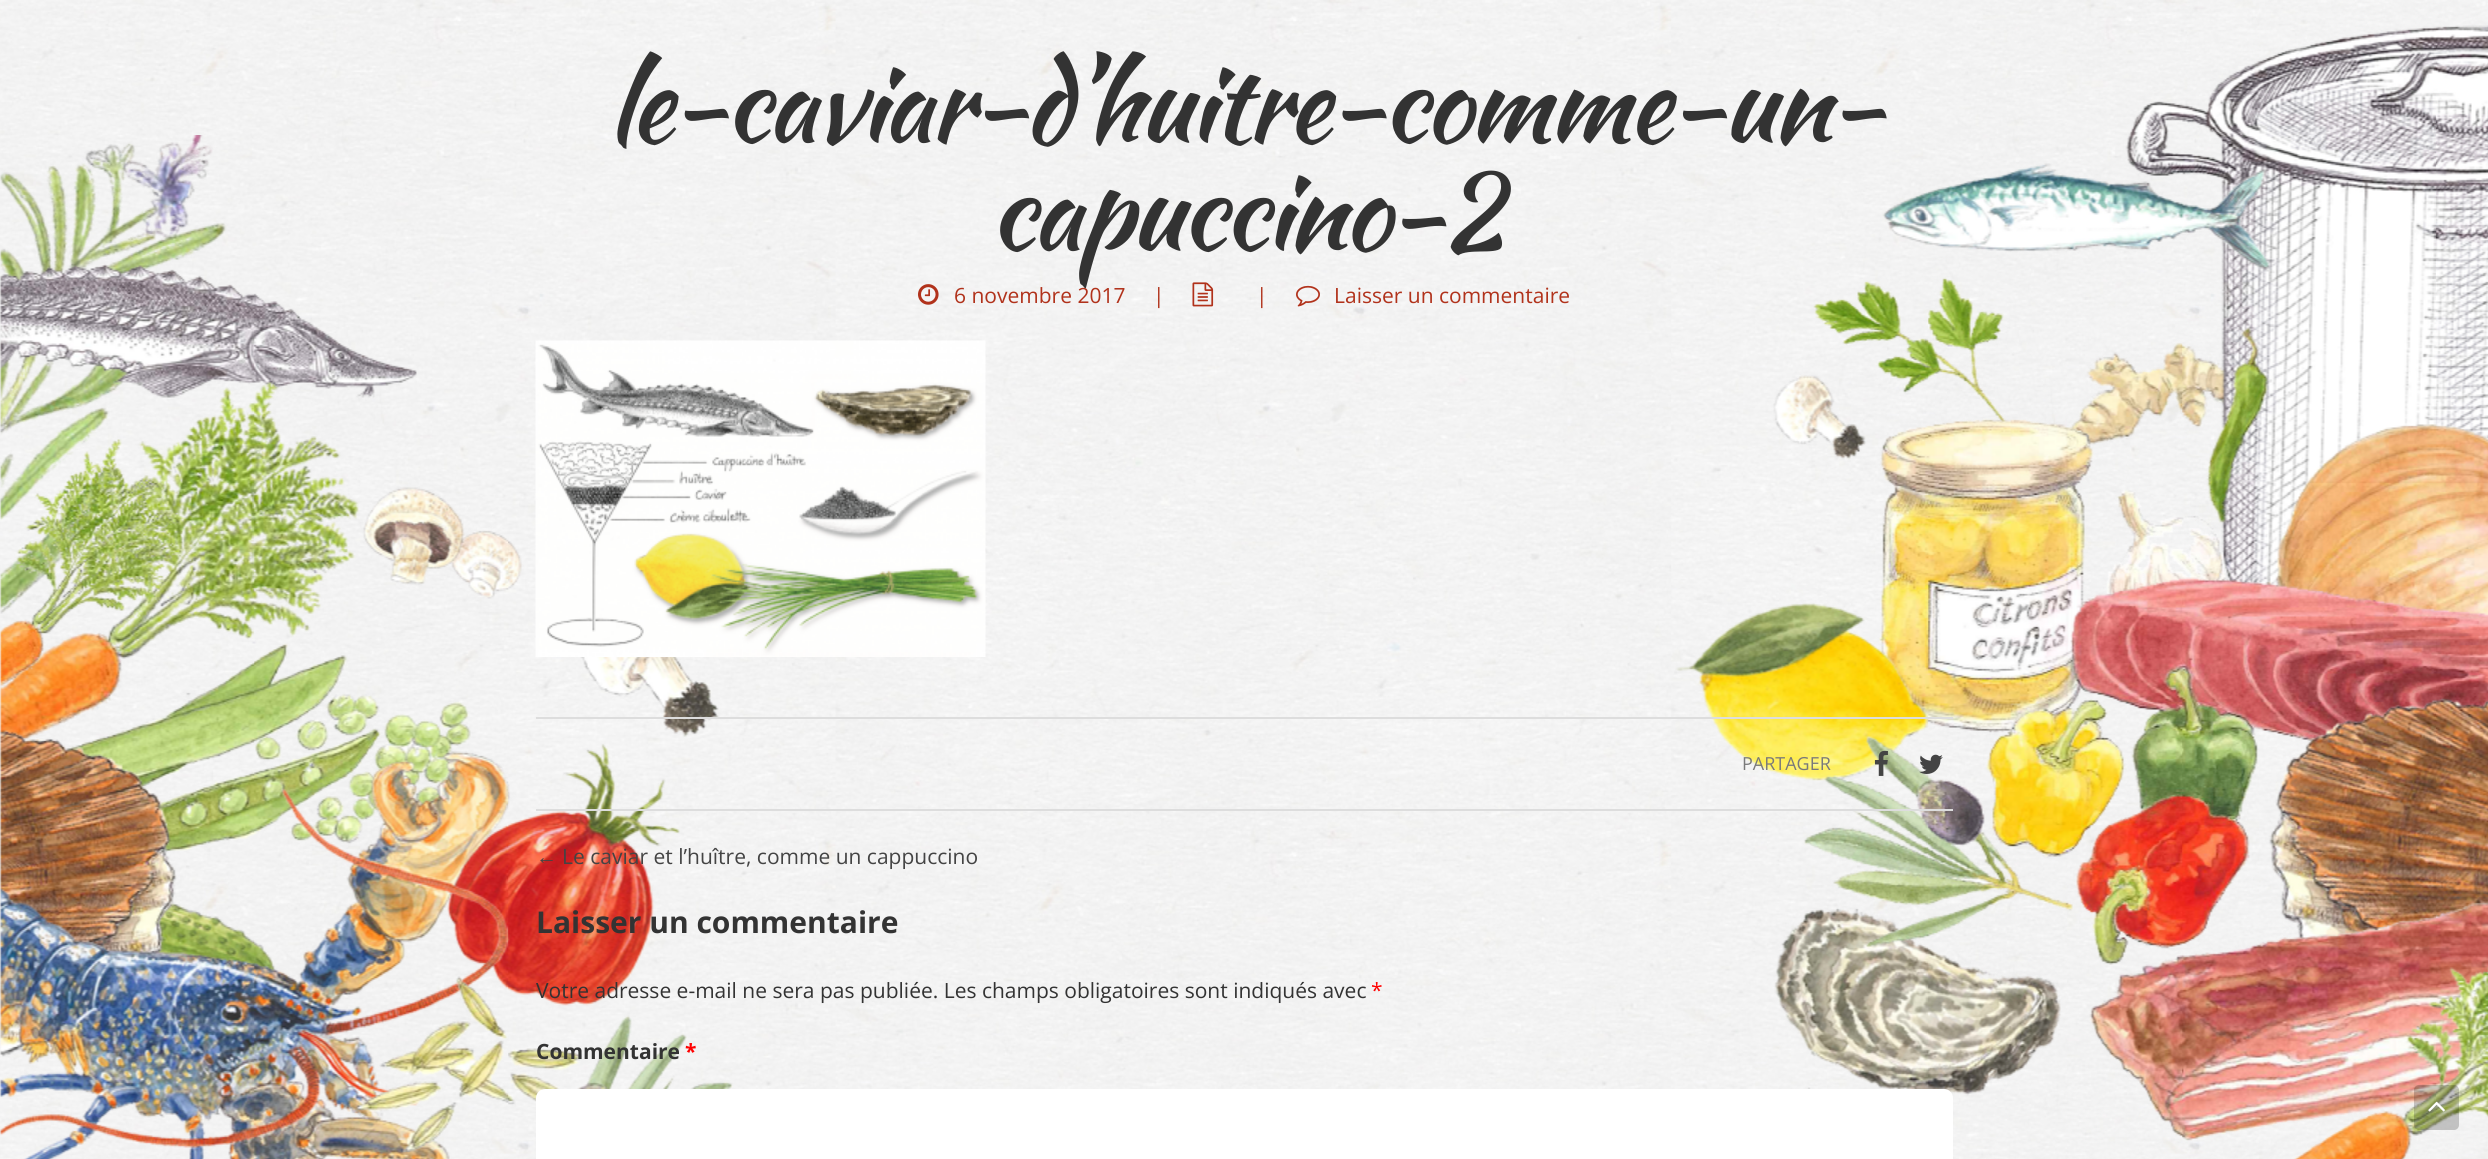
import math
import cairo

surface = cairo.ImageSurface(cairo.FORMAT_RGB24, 2488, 1159)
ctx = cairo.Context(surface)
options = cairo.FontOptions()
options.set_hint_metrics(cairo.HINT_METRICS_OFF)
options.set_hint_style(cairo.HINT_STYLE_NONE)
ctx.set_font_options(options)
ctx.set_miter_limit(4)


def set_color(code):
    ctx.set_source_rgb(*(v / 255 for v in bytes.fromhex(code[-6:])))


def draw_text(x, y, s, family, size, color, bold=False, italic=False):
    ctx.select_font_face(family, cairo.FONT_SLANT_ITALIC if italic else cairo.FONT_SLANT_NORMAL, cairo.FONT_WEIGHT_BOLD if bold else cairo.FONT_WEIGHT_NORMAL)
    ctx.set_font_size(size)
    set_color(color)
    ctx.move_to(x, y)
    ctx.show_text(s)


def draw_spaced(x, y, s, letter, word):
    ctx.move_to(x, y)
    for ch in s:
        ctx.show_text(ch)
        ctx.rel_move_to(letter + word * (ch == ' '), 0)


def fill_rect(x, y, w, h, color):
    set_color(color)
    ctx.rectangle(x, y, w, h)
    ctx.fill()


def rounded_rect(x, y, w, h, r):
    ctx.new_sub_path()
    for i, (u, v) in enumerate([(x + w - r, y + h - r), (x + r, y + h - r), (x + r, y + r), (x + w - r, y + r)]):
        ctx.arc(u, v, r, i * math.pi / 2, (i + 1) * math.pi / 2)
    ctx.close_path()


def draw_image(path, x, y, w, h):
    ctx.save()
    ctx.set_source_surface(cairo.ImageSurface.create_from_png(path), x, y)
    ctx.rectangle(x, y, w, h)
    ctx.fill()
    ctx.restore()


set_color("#ffffff")
ctx.paint()
draw_image("assets/img1.png", 0, 0, 2488, 1159)
draw_image("assets/img2.png", 0, 135, 733, 1024)
draw_image("assets/img3.png", 1675, 25, 813, 1134)
ctx.select_font_face("Kaushan Script")
ctx.set_font_size(108)
set_color("#333333")
draw_spaced(607, 141, "le-caviar-d’huitre-comme-un-", -3, 0)
draw_spaced(989, 249, "capuccino-2", -3, 0)
draw_image("assets/img4.png", 918, 284, 21, 21)
draw_text(954, 303, "6 novembre 2017", "Open Sans", 21, "#b1321b")
draw_text(1153, 303, "|", "Open Sans", 21, "#b1321b")
draw_image("assets/img5.png", 1192, 282, 22, 25)
draw_text(1256, 303, "|", "Open Sans", 21, "#b1321b")
draw_image("assets/img6.png", 1296, 285, 24, 22)
draw_text(1334, 303, "Laisser un commentaire", "Open Sans", 21, "#b1321b")
draw_image("assets/img7.png", 535, 340, 451, 317)
fill_rect(536, 717, 1417, 2, "#dddddd")
fill_rect(536, 809, 1417, 2, "#dddddd")
draw_text(1742, 770, "PARTAGER", "Open Sans", 18, "#797979")
draw_image("assets/img8.png", 1874, 750, 14, 26)
draw_image("assets/img9.png", 1919, 754, 24, 20)
draw_text(536, 864, "←", "Liberation Sans", 21, "#444444")
draw_text(562, 864, "Le caviar et l’huître, comme un cappuccino", "Open Sans", 21, "#444444")
draw_text(536, 933, "Laisser un commentaire", "Open Sans", 30, "#333333", bold=True)
draw_text(536, 998, "Votre adresse e-mail ne sera pas publiée. Les champs obligatoires sont indiqués avec", "Open Sans", 21, "#333333")
draw_text(1371, 998, "*", "Open Sans", 21, "#ff0000")
draw_text(536, 1059, "Commentaire", "Open Sans", 21, "#333333", bold=True)
draw_text(685, 1059, "*", "Open Sans", 21, "#ff0000", bold=True)
set_color("#ffffff")
rounded_rect(536, 1089, 1417, 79, 9)
ctx.fill()
ctx.set_source_rgba(0, 0, 0, 0.2)
rounded_rect(2414, 1085, 45, 45, 5)
ctx.fill()
draw_image("assets/img10.png", 2428, 1101, 17, 11)
surface.write_to_png("output.png")
